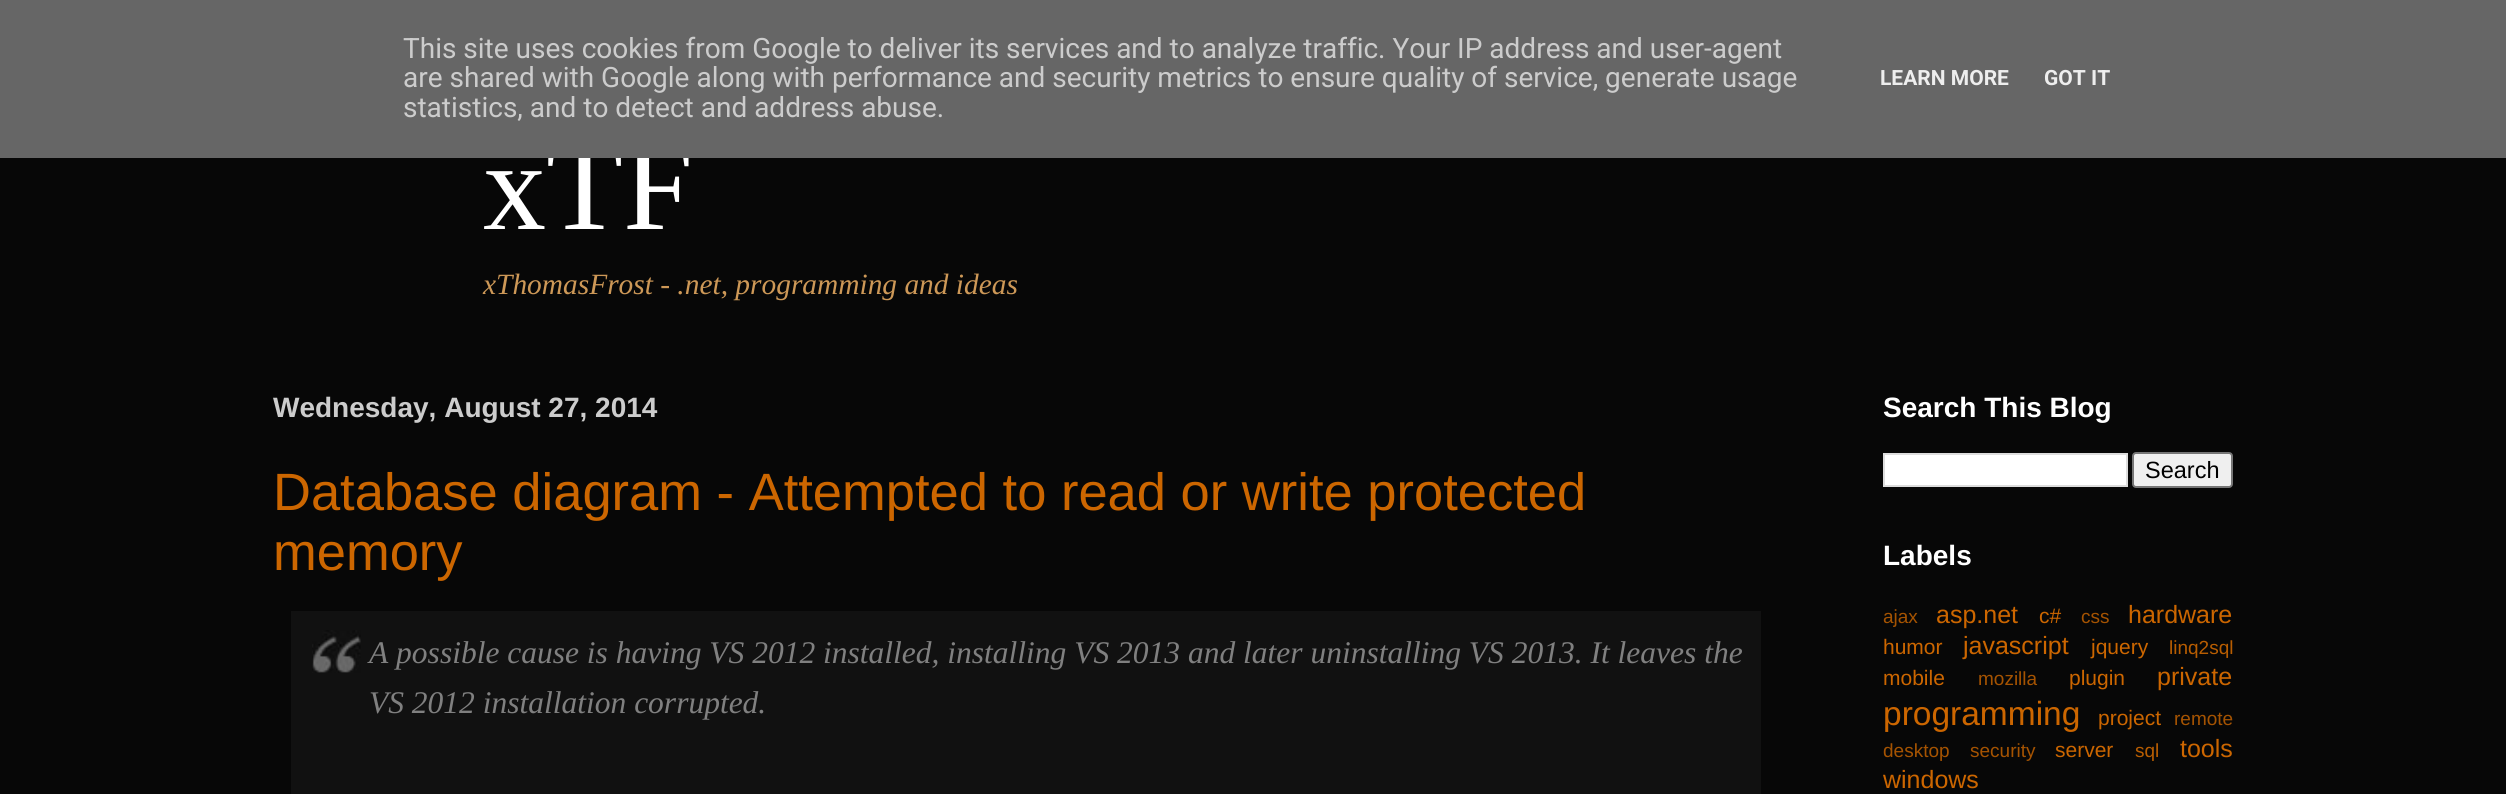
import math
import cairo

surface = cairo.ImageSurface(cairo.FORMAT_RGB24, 2506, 794)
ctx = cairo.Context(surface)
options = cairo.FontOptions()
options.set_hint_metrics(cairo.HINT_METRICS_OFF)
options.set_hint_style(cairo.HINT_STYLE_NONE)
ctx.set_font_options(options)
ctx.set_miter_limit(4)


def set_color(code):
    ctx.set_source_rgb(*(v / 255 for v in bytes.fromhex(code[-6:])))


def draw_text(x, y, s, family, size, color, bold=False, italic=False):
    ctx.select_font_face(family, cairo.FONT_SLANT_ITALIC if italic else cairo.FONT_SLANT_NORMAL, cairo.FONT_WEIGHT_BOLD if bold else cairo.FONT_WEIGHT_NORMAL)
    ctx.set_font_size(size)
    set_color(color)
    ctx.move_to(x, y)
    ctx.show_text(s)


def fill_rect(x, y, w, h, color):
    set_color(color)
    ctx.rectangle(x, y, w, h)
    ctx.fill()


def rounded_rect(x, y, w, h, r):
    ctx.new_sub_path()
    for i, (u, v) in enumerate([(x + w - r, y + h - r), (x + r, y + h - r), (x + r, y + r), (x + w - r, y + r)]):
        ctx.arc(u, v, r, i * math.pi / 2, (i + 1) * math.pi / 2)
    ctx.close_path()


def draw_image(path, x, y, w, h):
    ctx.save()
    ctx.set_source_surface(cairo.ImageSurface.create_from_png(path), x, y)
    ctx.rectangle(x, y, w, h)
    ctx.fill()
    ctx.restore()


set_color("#070707")
ctx.paint()
draw_text(483, 229, "xTF", "Liberation Serif", 126, "#ffffff")
fill_rect(0, 0, 2506, 158, "#666666")
draw_text(403, 58, "This site uses cookies from Google to deliver its services and to analyze traffic. Your IP address and user-agent", "Roboto", 28, "#cccccc")
draw_text(403, 87, "are shared with Google along with performance and security metrics to ensure quality of service, generate usage", "Roboto", 28, "#cccccc")
draw_text(403, 117, "statistics, and to detect and address abuse.", "Roboto", 28, "#cccccc")
draw_text(1880, 85, "LEARN MORE", "Roboto", 21, "#eeeeee", bold=True)
draw_text(2044, 85, "GOT IT", "Roboto", 21, "#eeeeee", bold=True)
draw_text(483, 294, "xThomasFrost - .net, programming and ideas", "Liberation Serif", 29.4, "#cd9857", italic=True)
draw_text(273, 417, "Wednesday, August 27, 2014", "Liberation Sans", 28, "#cccccc", bold=True)
draw_text(273, 510, "Database diagram - Attempted to read or write protected", "Liberation Sans", 52.5, "#cc6600")
draw_text(273, 570, "memory", "Liberation Sans", 52.5, "#cc6600")
fill_rect(291, 611, 1470, 183, "#111111")
draw_image("assets/img1.png", 312, 630, 49, 43)
draw_text(369, 663, "A possible cause is having VS 2012 installed, installing VS 2013 and later uninstalling VS 2013. It leaves the", "Liberation Serif", 31.5, "#808080", italic=True)
draw_text(369, 713, "VS 2012 installation corrupted.", "Liberation Serif", 31.5, "#808080", italic=True)
draw_text(1883, 417, "Search This Blog", "Liberation Sans", 28, "#ffffff", bold=True)
ctx.rectangle(1884, 454, 243, 32)
ctx.fill_preserve()
set_color("#dddddd")
ctx.stroke()
set_color("#efefef")
rounded_rect(2133, 453, 99, 34, 3)
ctx.fill_preserve()
set_color("#767676")
ctx.stroke()
draw_text(2145, 478, "Search", "Liberation Sans", 23.5, "#000000")
draw_text(1883, 565, "Labels", "Liberation Sans", 28, "#ffffff", bold=True)
draw_text(1883, 623, "ajax", "Liberation Sans", 19, "#a55301")
draw_text(1936, 623, "asp.net", "Liberation Sans", 25, "#cc6600")
draw_text(2039, 623, "c#", "Liberation Sans", 21, "#cc6600")
draw_text(2081, 623, "css", "Liberation Sans", 19, "#a55301")
draw_text(2128, 623, "hardware", "Liberation Sans", 25, "#cc6600")
draw_text(1883, 654, "humor", "Liberation Sans", 21, "#cc6600")
draw_text(1963, 654, "javascript", "Liberation Sans", 25, "#cc6600")
draw_text(2091, 654, "jquery", "Liberation Sans", 21, "#cc6600")
draw_text(2169, 654, "linq2sql", "Liberation Sans", 19, "#b85d01")
draw_text(1883, 685, "mobile", "Liberation Sans", 21, "#cc6600")
draw_text(1978, 685, "mozilla", "Liberation Sans", 19, "#a55301")
draw_text(2069, 685, "plugin", "Liberation Sans", 21, "#cc6600")
draw_text(2157, 685, "private", "Liberation Sans", 25, "#cc6600")
draw_text(1883, 725, "programming", "Liberation Sans", 33.5, "#cc6600")
draw_text(2098, 725, "project", "Liberation Sans", 21, "#cc6600")
draw_text(2174, 725, "remote", "Liberation Sans", 19, "#a55301")
draw_text(1883, 757, "desktop", "Liberation Sans", 19, "#a55301")
draw_text(1970, 757, "security", "Liberation Sans", 19, "#a55301")
draw_text(2055, 757, "server", "Liberation Sans", 21, "#cc6600")
draw_text(2135, 757, "sql", "Liberation Sans", 19, "#b85d01")
draw_text(2180, 757, "tools", "Liberation Sans", 25, "#cc6600")
draw_text(1883, 788, "windows", "Liberation Sans", 25, "#cc6600")
surface.write_to_png("output.png")
